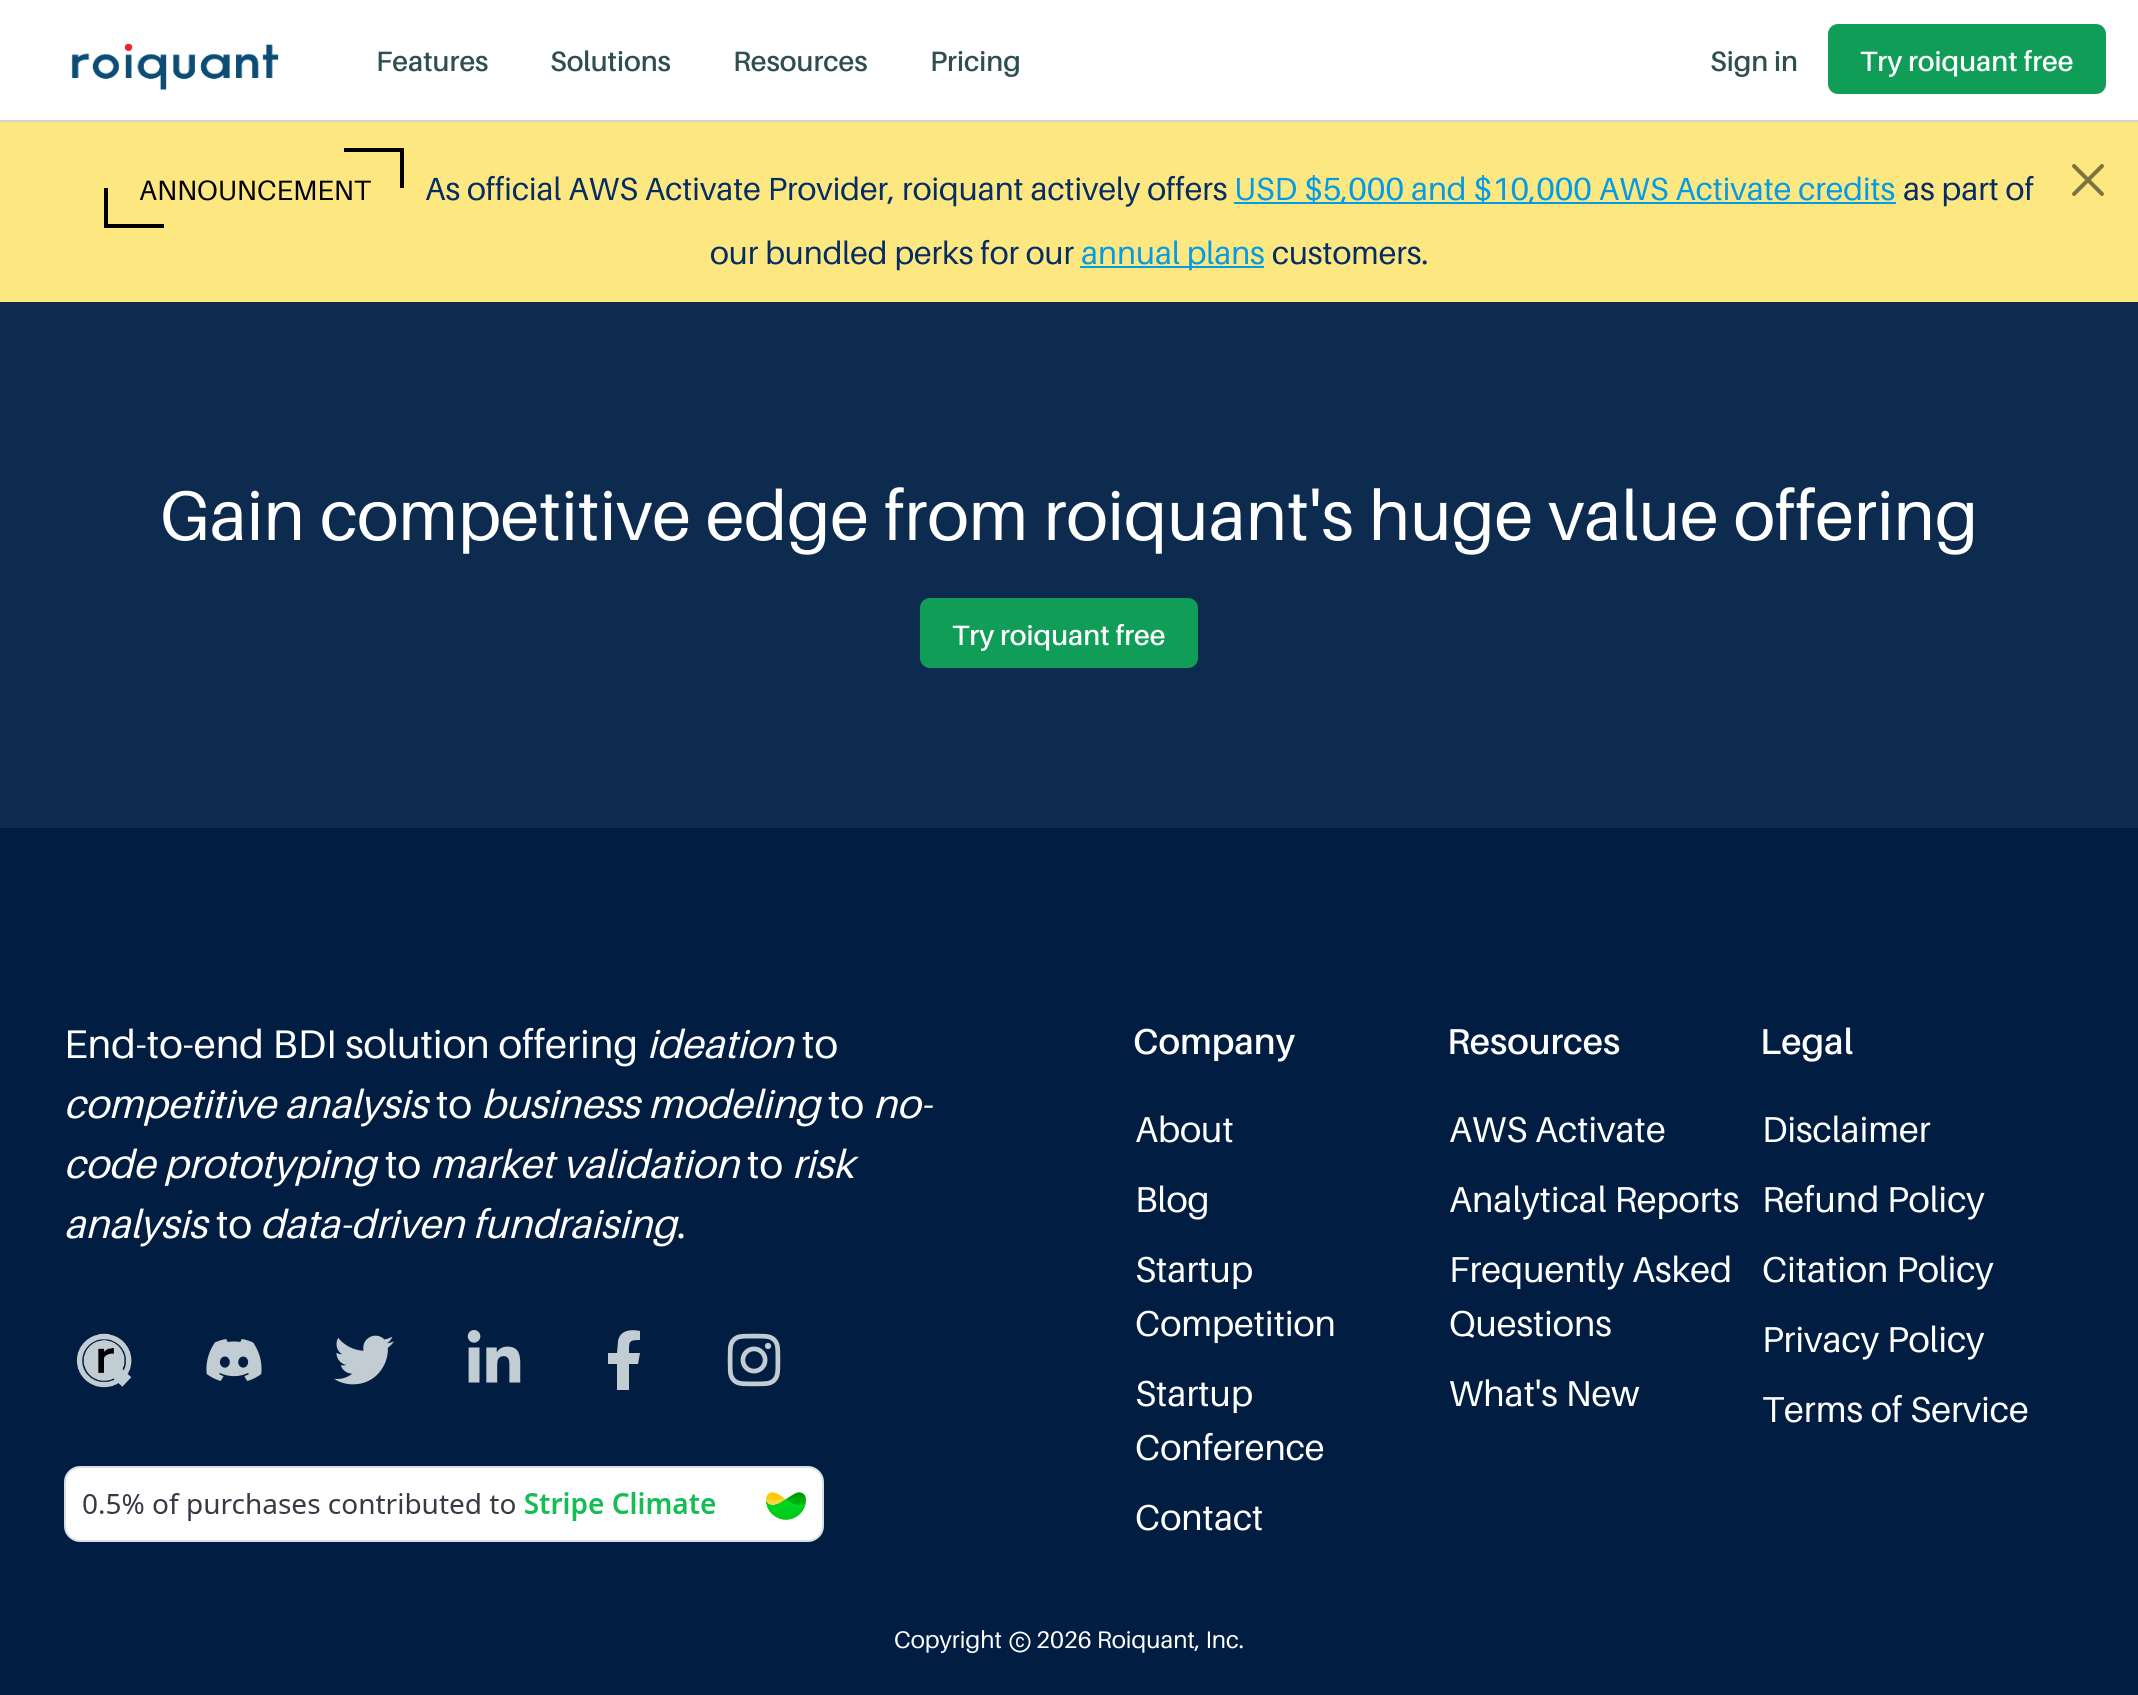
import math
import cairo

surface = cairo.ImageSurface(cairo.FORMAT_RGB24, 2138, 1695)
ctx = cairo.Context(surface)
options = cairo.FontOptions()
options.set_hint_metrics(cairo.HINT_METRICS_OFF)
options.set_hint_style(cairo.HINT_STYLE_NONE)
ctx.set_font_options(options)
ctx.set_miter_limit(4)


def set_color(code):
    ctx.set_source_rgb(*(v / 255 for v in bytes.fromhex(code[-6:])))


def draw_text(x, y, s, family, size, color, bold=False, italic=False):
    ctx.select_font_face(family, cairo.FONT_SLANT_ITALIC if italic else cairo.FONT_SLANT_NORMAL, cairo.FONT_WEIGHT_BOLD if bold else cairo.FONT_WEIGHT_NORMAL)
    ctx.set_font_size(size)
    set_color(color)
    ctx.move_to(x, y)
    ctx.show_text(s)


def fill_rect(x, y, w, h, color):
    set_color(color)
    ctx.rectangle(x, y, w, h)
    ctx.fill()


def rounded_rect(x, y, w, h, r):
    ctx.new_sub_path()
    for i, (u, v) in enumerate([(x + w - r, y + h - r), (x + r, y + h - r), (x + r, y + r), (x + w - r, y + r)]):
        ctx.arc(u, v, r, i * math.pi / 2, (i + 1) * math.pi / 2)
    ctx.close_path()


def draw_image(path, x, y, w, h):
    ctx.save()
    ctx.set_source_surface(cairo.ImageSurface.create_from_png(path), x, y)
    ctx.rectangle(x, y, w, h)
    ctx.fill()
    ctx.restore()


set_color("#ffffff")
ctx.paint()
fill_rect(0, 120, 2138, 2, "#d3d3d3")
draw_image("assets/img1.png", 71, 43, 208, 48)
draw_text(376, 71, "Features", "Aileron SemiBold", 28, "#2f4f4f")
draw_text(550, 71, "Solutions", "Aileron SemiBold", 28, "#2f4f4f")
draw_text(733, 71, "Resources", "Aileron SemiBold", 28, "#2f4f4f")
draw_text(930, 71, "Pricing", "Aileron SemiBold", 28, "#2f4f4f")
draw_text(1710, 71, "Sign in", "Aileron SemiBold", 28, "#2f4f4f")
set_color("#0f9d58")
rounded_rect(1829, 25, 276, 68, 9)
ctx.fill_preserve()
ctx.stroke()
draw_text(1860, 71, "Try roiquant free", "Aileron SemiBold", 28, "#ffffff")
fill_rect(0, 122, 2138, 180, "#fde780")
fill_rect(400, 148, 4, 40, "#000000")
fill_rect(344, 148, 60, 4, "#000000")
fill_rect(104, 188, 4, 40, "#000000")
draw_text(139, 200, "ANNOUNCEMENT", "Aileron", 28, "#000000")
fill_rect(104, 224, 60, 4, "#000000")
draw_text(425, 200, "As official AWS Activate Provider, roiquant actively offers", "Aileron", 32, "#052c65")
fill_rect(1234, 202, 662, 2, "#039be5")
draw_text(1234, 200, "USD $5,000 and $10,000 AWS Activate credits", "Aileron", 32, "#039be5")
draw_text(1903, 200, "as part of", "Aileron", 32, "#052c65")
draw_text(710, 264, "our bundled perks for our", "Aileron", 32, "#052c65")
fill_rect(1080, 266, 184, 2, "#039be5")
draw_text(1081, 264, "annual plans", "Aileron", 32, "#039be5")
draw_text(1272, 264, "customers.", "Aileron", 32, "#052c65")
draw_image("assets/img2.png", 2072, 164, 32, 32)
fill_rect(0, 302, 2138, 526, "#0d2b4f")
draw_text(160, 540, "Gain competitive edge from roiquant's huge value offering", "Aileron", 70, "#ffffff")
set_color("#0f9d58")
rounded_rect(921, 599, 276, 68, 9)
ctx.fill_preserve()
ctx.stroke()
draw_text(952, 645, "Try roiquant free", "Aileron SemiBold", 28, "#ffffff")
fill_rect(0, 828, 2138, 867, "#011e42")
draw_text(64, 1058, "End-to-end BDI solution offering", "Aileron", 40, "#ffffff")
draw_text(647, 1058, "ideation", "Aileron", 40, "#ffffff", italic=True)
draw_text(802, 1058, "to", "Aileron", 40, "#ffffff")
draw_text(64, 1118, "competitive analysis", "Aileron", 40, "#ffffff", italic=True)
draw_text(436, 1118, "to", "Aileron", 40, "#ffffff")
draw_text(481, 1118, "business modeling", "Aileron", 40, "#ffffff", italic=True)
draw_text(828, 1118, "to", "Aileron", 40, "#ffffff")
draw_text(873, 1118, "no-", "Aileron", 40, "#ffffff", italic=True)
draw_text(64, 1178, "code prototyping", "Aileron", 40, "#ffffff", italic=True)
draw_text(385, 1178, "to", "Aileron", 40, "#ffffff")
draw_text(430, 1178, "market validation", "Aileron", 40, "#ffffff", italic=True)
draw_text(747, 1178, "to", "Aileron", 40, "#ffffff")
draw_text(792, 1178, "risk", "Aileron", 40, "#ffffff", italic=True)
draw_text(64, 1238, "analysis", "Aileron", 40, "#ffffff", italic=True)
draw_text(216, 1238, "to", "Aileron", 40, "#ffffff")
draw_text(260, 1238, "data-driven fundraising", "Aileron", 40, "#ffffff", italic=True)
draw_text(677, 1238, ".", "Aileron", 40, "#ffffff")
draw_image("assets/img3.png", 76, 1333, 56, 55)
draw_image("assets/img4.png", 206, 1339, 56, 42)
draw_image("assets/img5.png", 334, 1335, 60, 50)
draw_image("assets/img6.png", 467, 1330, 54, 53)
set_color("#c1ccd3")
ctx.new_path()
ctx.move_to(638, 1364)
ctx.line_to(640, 1353)
ctx.line_to(629, 1353)
ctx.curve_to(629, 1342, 628, 1340, 640, 1340)
ctx.line_to(640, 1331)
ctx.curve_to(631, 1329, 620, 1330, 618, 1341)
ctx.line_to(617, 1353)
ctx.line_to(608, 1353)
ctx.line_to(608, 1364)
ctx.line_to(617, 1364)
ctx.line_to(617, 1390)
ctx.line_to(629, 1390)
ctx.line_to(629, 1364)
ctx.close_path()
ctx.fill()
draw_image("assets/img7.png", 727, 1333, 54, 54)
draw_image("assets/img8.png", 64, 1466, 760, 76)
draw_text(1133, 1054, "Company", "Aileron SemiBold", 36, "#ffffff")
draw_text(1135, 1142, "About", "Aileron", 36, "#ffffff")
draw_text(1135, 1212, "Blog", "Aileron", 36, "#ffffff")
draw_text(1135, 1282, "Startup", "Aileron", 36, "#ffffff")
draw_text(1135, 1336, "Competition", "Aileron", 36, "#ffffff")
draw_text(1135, 1406, "Startup", "Aileron", 36, "#ffffff")
draw_text(1135, 1460, "Conference", "Aileron", 36, "#ffffff")
draw_text(1135, 1530, "Contact", "Aileron", 36, "#ffffff")
draw_text(1447, 1054, "Resources", "Aileron SemiBold", 36, "#ffffff")
draw_text(1449, 1142, "AWS Activate", "Aileron", 36, "#ffffff")
draw_text(1449, 1212, "Analytical Reports", "Aileron", 36, "#ffffff")
draw_text(1449, 1282, "Frequently Asked", "Aileron", 36, "#ffffff")
draw_text(1449, 1336, "Questions", "Aileron", 36, "#ffffff")
draw_text(1449, 1406, "What's New", "Aileron", 36, "#ffffff")
draw_text(1760, 1054, "Legal", "Aileron SemiBold", 36, "#ffffff")
draw_text(1762, 1142, "Disclaimer", "Aileron", 36, "#ffffff")
draw_text(1762, 1212, "Refund Policy", "Aileron", 36, "#ffffff")
draw_text(1762, 1282, "Citation Policy", "Aileron", 36, "#ffffff")
draw_text(1762, 1352, "Privacy Policy", "Aileron", 36, "#ffffff")
draw_text(1762, 1422, "Terms of Service", "Aileron", 36, "#ffffff")
draw_text(894, 1648, "Copyright", "Aileron", 24, "#ffffff")
draw_image("assets/img9.png", 1009, 1631, 22, 22)
draw_text(1036, 1648, "2026 Roiquant, Inc.", "Aileron", 24, "#ffffff")
surface.write_to_png("output.png")
